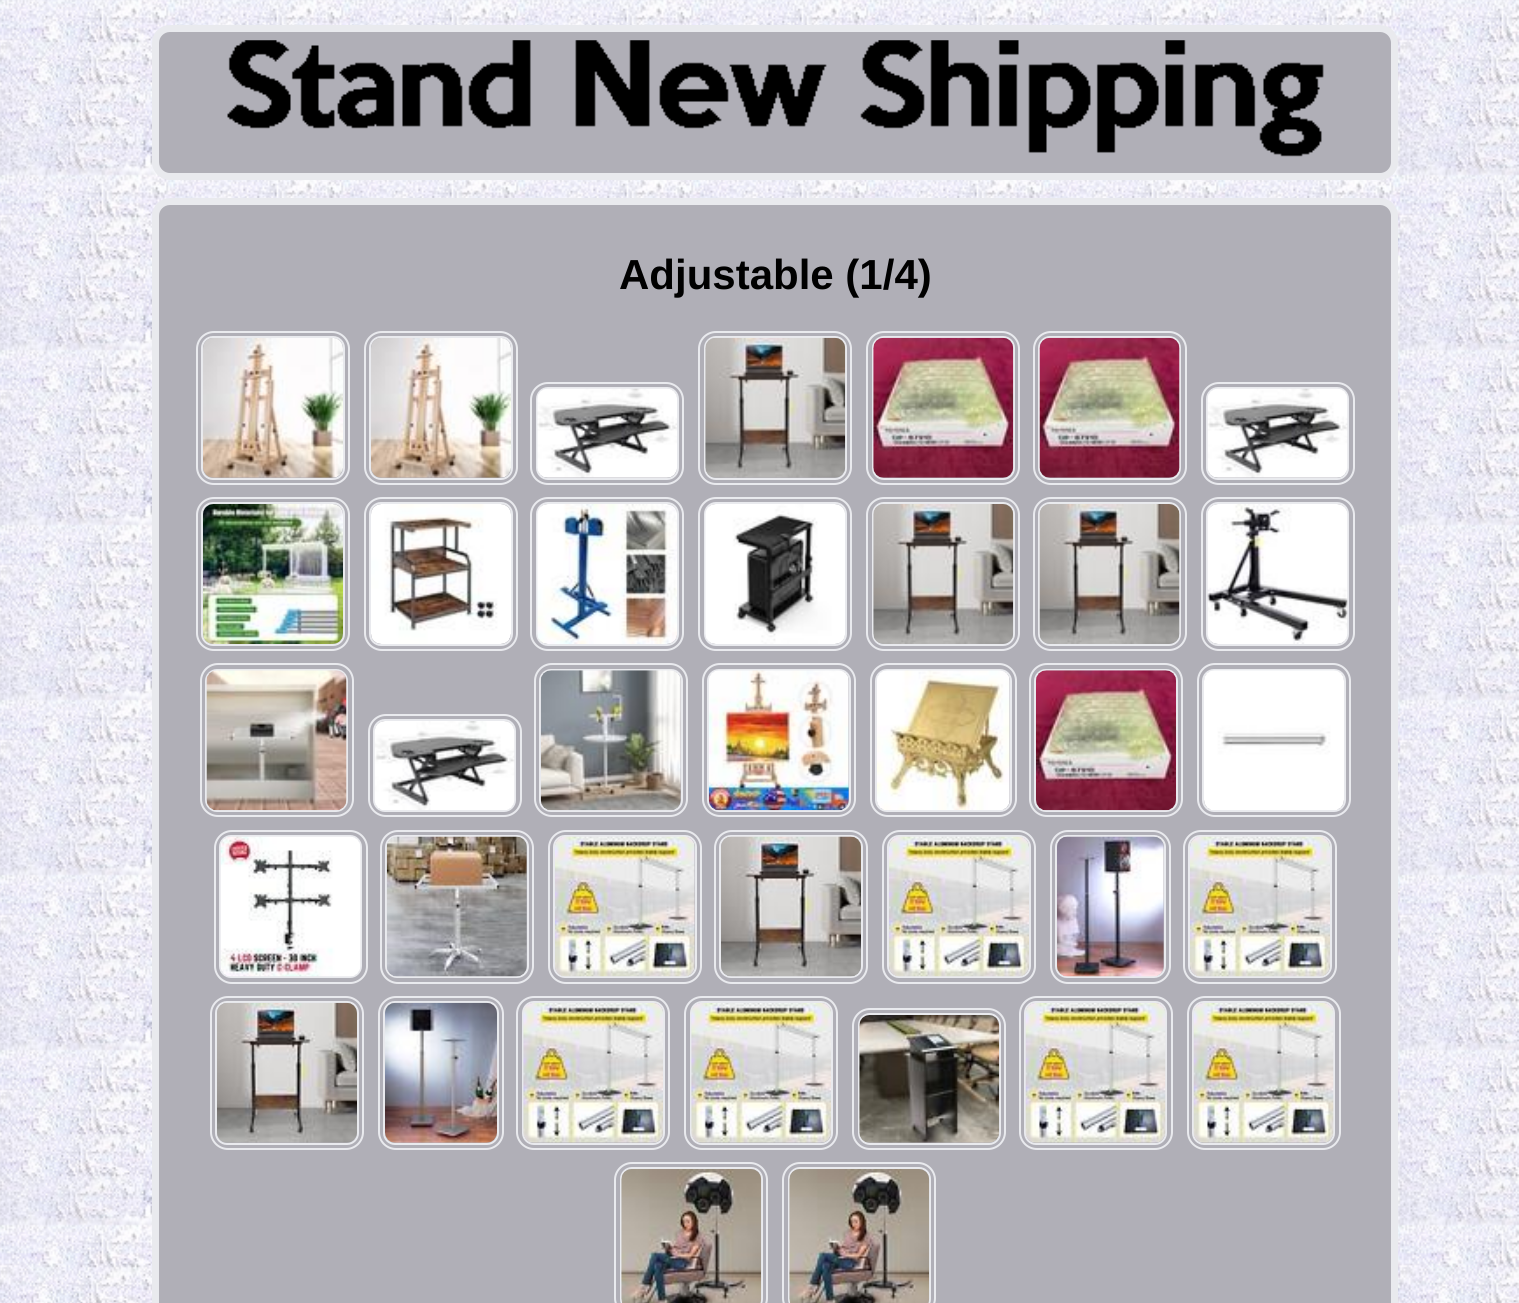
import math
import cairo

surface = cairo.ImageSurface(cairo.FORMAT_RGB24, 1519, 1303)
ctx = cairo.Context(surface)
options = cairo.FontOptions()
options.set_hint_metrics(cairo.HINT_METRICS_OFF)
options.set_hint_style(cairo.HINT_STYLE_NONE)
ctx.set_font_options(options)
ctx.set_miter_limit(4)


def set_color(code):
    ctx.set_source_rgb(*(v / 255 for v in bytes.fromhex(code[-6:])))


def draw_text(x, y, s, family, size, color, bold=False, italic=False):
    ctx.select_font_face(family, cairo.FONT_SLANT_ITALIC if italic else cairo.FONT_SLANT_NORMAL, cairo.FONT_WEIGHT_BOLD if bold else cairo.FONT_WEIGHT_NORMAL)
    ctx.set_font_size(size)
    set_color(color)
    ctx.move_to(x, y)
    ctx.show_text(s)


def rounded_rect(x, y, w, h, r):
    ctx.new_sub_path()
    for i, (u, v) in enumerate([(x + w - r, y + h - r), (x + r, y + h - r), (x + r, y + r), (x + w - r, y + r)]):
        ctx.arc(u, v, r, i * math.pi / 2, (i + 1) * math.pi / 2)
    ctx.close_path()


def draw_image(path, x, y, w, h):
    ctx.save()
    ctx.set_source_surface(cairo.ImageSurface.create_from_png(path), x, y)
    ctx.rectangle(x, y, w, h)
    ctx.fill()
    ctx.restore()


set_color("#ffffff")
ctx.paint()
draw_image("assets/img1.png", 0, 0, 1519, 1303)
set_color("#b0afb7")
rounded_rect(155.5, 28.5, 1239, 148, 14.5)
ctx.fill_preserve()
set_color("#e9eaee")
ctx.set_line_width(7)
ctx.stroke()
draw_image("assets/img2.png", 227, 40, 1097, 117)
set_color("#b0afb7")
rounded_rect(155.5, 201.5, 1239, 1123, 14.5)
ctx.fill_preserve()
set_color("#e9eaee")
ctx.stroke()
draw_text(619, 289, "Adjustable (1/4)", "Liberation Sans", 42, "#000000", bold=True)
rounded_rect(197, 332, 152, 152, 17)
set_color("#e9eaee")
ctx.set_line_width(2)
ctx.stroke()
rounded_rect(365, 332, 152, 152, 17)
ctx.stroke()
rounded_rect(699, 332, 152, 152, 17)
ctx.stroke()
rounded_rect(867, 332, 152, 152, 17)
ctx.stroke()
rounded_rect(1034, 332, 152, 152, 17)
ctx.stroke()
rounded_rect(202, 337, 142, 142, 11)
ctx.stroke()
rounded_rect(370, 337, 142, 142, 11)
ctx.stroke()
rounded_rect(705, 337, 141, 142, 11)
ctx.stroke()
rounded_rect(873, 337, 141, 142, 11)
ctx.stroke()
rounded_rect(1039, 337, 141, 142, 11)
ctx.stroke()
draw_image("assets/img3.png", 203, 338, 140, 140)
draw_image("assets/img4.png", 371, 338, 140, 140)
rounded_rect(531, 383, 152, 101, 17)
ctx.stroke()
draw_image("assets/img5.png", 705, 337, 141, 141)
draw_image("assets/img6.png", 873, 337, 141, 141)
draw_image("assets/img7.png", 1039, 337, 141, 141)
rounded_rect(1202, 383, 152, 101, 17)
ctx.stroke()
rounded_rect(537, 388, 141, 91, 11)
ctx.stroke()
rounded_rect(1207, 388, 141, 91, 11)
ctx.stroke()
draw_image("assets/img8.png", 537, 388, 140, 90)
draw_image("assets/img9.png", 1207, 388, 141, 90)
rounded_rect(197, 498, 152, 152, 17)
ctx.stroke()
rounded_rect(365, 498, 152, 152, 17)
ctx.stroke()
rounded_rect(531, 498, 152, 152, 17)
ctx.stroke()
rounded_rect(699, 498, 152, 152, 17)
ctx.stroke()
rounded_rect(867, 498, 152, 152, 17)
ctx.stroke()
rounded_rect(1034, 498, 152, 152, 17)
ctx.stroke()
rounded_rect(1202, 498, 152, 152, 17)
ctx.stroke()
rounded_rect(202, 503, 142, 142, 11)
ctx.stroke()
rounded_rect(370, 503, 142, 142, 11)
ctx.stroke()
rounded_rect(537, 503, 141, 142, 11)
ctx.stroke()
rounded_rect(705, 503, 141, 142, 11)
ctx.stroke()
rounded_rect(873, 503, 141, 142, 11)
ctx.stroke()
rounded_rect(1039, 503, 141, 142, 11)
ctx.stroke()
rounded_rect(1207, 503, 141, 142, 11)
ctx.stroke()
draw_image("assets/img10.png", 203, 504, 140, 140)
draw_image("assets/img11.png", 371, 504, 140, 140)
draw_image("assets/img12.png", 537, 504, 140, 140)
draw_image("assets/img13.png", 705, 504, 140, 140)
draw_image("assets/img14.png", 873, 504, 141, 140)
draw_image("assets/img15.png", 1039, 504, 141, 140)
draw_image("assets/img16.png", 1207, 504, 141, 140)
rounded_rect(201, 664, 152, 152, 17)
ctx.stroke()
rounded_rect(535, 664, 152, 152, 17)
ctx.stroke()
rounded_rect(703, 664, 152, 152, 17)
ctx.stroke()
rounded_rect(871, 664, 145, 152, 17)
ctx.stroke()
rounded_rect(1030, 664, 152, 152, 17)
ctx.stroke()
rounded_rect(1198, 664, 152, 152, 17)
ctx.stroke()
rounded_rect(206, 670, 141, 141, 11)
ctx.stroke()
rounded_rect(540, 670, 142, 141, 11)
ctx.stroke()
rounded_rect(708, 670, 142, 141, 11)
ctx.stroke()
rounded_rect(876, 670, 135, 141, 11)
ctx.stroke()
rounded_rect(1035, 670, 142, 141, 11)
ctx.stroke()
rounded_rect(1203, 670, 142, 141, 11)
ctx.stroke()
draw_image("assets/img17.png", 206, 670, 141, 141)
rounded_rect(369, 715, 152, 101, 17)
ctx.stroke()
draw_image("assets/img18.png", 540, 670, 141, 141)
draw_image("assets/img19.png", 708, 670, 141, 141)
draw_image("assets/img20.png", 877, 670, 133, 140)
draw_image("assets/img21.png", 1036, 670, 140, 141)
draw_image("assets/img22.png", 1204, 670, 140, 140)
rounded_rect(374, 720, 141, 91, 11)
ctx.stroke()
draw_image("assets/img23.png", 374, 721, 141, 89)
rounded_rect(215, 831, 152, 152, 17)
ctx.stroke()
rounded_rect(381, 831, 152, 152, 17)
ctx.stroke()
rounded_rect(549, 831, 152, 152, 17)
ctx.stroke()
rounded_rect(715, 831, 152, 152, 17)
ctx.stroke()
rounded_rect(883, 831, 152, 152, 17)
ctx.stroke()
rounded_rect(1051, 831, 119, 152, 17)
ctx.stroke()
rounded_rect(1184, 831, 152, 152, 17)
ctx.stroke()
rounded_rect(220, 836, 141, 141, 11)
ctx.stroke()
rounded_rect(386, 836, 142, 141, 11)
ctx.stroke()
rounded_rect(554, 836, 142, 141, 11)
ctx.stroke()
rounded_rect(720, 836, 142, 141, 11)
ctx.stroke()
rounded_rect(888, 836, 142, 141, 11)
ctx.stroke()
rounded_rect(1056, 836, 109, 141, 11)
ctx.stroke()
rounded_rect(1189, 836, 142, 141, 11)
ctx.stroke()
draw_image("assets/img24.png", 220, 836, 141, 141)
draw_image("assets/img25.png", 386, 836, 141, 141)
draw_image("assets/img26.png", 555, 836, 140, 141)
draw_image("assets/img27.png", 721, 836, 140, 141)
draw_image("assets/img28.png", 889, 836, 140, 141)
draw_image("assets/img29.png", 1057, 836, 107, 141)
draw_image("assets/img30.png", 1190, 836, 140, 141)
rounded_rect(211, 997, 152, 152, 17)
ctx.stroke()
rounded_rect(379, 997, 124, 152, 17)
ctx.stroke()
rounded_rect(517, 997, 152, 152, 17)
ctx.stroke()
rounded_rect(685, 997, 152, 152, 17)
ctx.stroke()
rounded_rect(1020, 997, 152, 152, 17)
ctx.stroke()
rounded_rect(1188, 997, 152, 152, 17)
ctx.stroke()
rounded_rect(216, 1002, 142, 142, 11)
ctx.stroke()
rounded_rect(384, 1002, 114, 142, 11)
ctx.stroke()
rounded_rect(523, 1002, 141, 142, 11)
ctx.stroke()
rounded_rect(691, 1002, 141, 142, 11)
ctx.stroke()
rounded_rect(1025, 1002, 141, 142, 11)
ctx.stroke()
rounded_rect(1193, 1002, 141, 142, 11)
ctx.stroke()
draw_image("assets/img31.png", 217, 1002, 140, 141)
draw_image("assets/img32.png", 385, 1002, 112, 141)
draw_image("assets/img33.png", 523, 1003, 140, 140)
draw_image("assets/img34.png", 691, 1003, 140, 140)
rounded_rect(853, 1009, 152, 140, 17)
ctx.stroke()
draw_image("assets/img35.png", 1025, 1003, 141, 140)
draw_image("assets/img36.png", 1193, 1003, 141, 140)
rounded_rect(859, 1014, 141, 130, 11)
ctx.stroke()
draw_image("assets/img37.png", 859, 1015, 141, 128)
rounded_rect(615, 1163, 152, 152, 17)
ctx.stroke()
rounded_rect(783, 1163, 152, 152, 17)
ctx.stroke()
rounded_rect(621, 1168, 141, 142, 11)
ctx.stroke()
rounded_rect(789, 1168, 141, 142, 11)
ctx.stroke()
draw_image("assets/img38.png", 621, 1169, 141, 134)
draw_image("assets/img39.png", 789, 1169, 141, 134)
surface.write_to_png("output.png")
